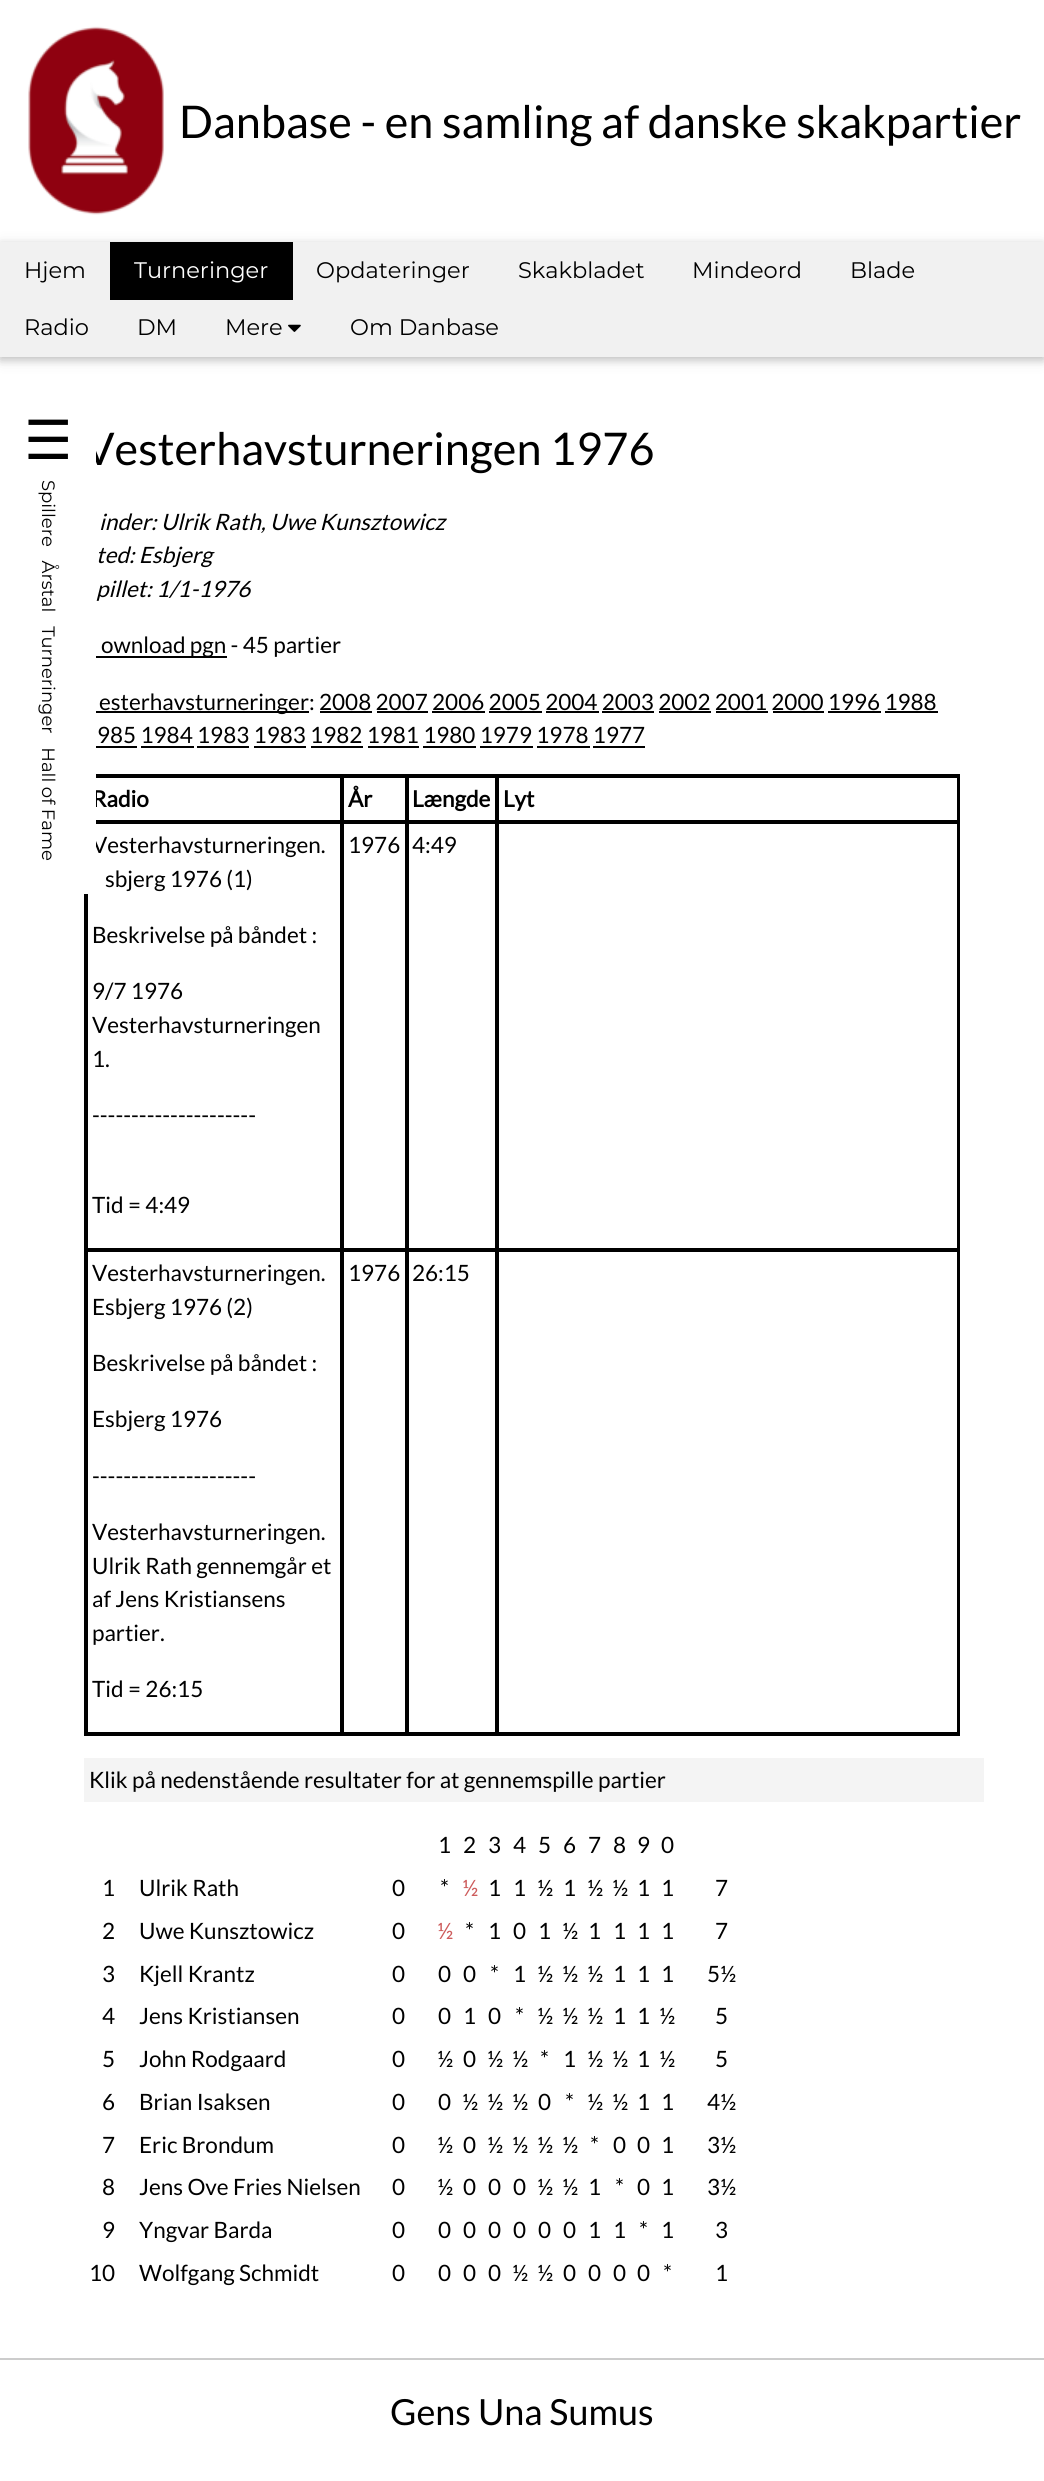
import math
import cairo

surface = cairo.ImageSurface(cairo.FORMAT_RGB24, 1044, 2481)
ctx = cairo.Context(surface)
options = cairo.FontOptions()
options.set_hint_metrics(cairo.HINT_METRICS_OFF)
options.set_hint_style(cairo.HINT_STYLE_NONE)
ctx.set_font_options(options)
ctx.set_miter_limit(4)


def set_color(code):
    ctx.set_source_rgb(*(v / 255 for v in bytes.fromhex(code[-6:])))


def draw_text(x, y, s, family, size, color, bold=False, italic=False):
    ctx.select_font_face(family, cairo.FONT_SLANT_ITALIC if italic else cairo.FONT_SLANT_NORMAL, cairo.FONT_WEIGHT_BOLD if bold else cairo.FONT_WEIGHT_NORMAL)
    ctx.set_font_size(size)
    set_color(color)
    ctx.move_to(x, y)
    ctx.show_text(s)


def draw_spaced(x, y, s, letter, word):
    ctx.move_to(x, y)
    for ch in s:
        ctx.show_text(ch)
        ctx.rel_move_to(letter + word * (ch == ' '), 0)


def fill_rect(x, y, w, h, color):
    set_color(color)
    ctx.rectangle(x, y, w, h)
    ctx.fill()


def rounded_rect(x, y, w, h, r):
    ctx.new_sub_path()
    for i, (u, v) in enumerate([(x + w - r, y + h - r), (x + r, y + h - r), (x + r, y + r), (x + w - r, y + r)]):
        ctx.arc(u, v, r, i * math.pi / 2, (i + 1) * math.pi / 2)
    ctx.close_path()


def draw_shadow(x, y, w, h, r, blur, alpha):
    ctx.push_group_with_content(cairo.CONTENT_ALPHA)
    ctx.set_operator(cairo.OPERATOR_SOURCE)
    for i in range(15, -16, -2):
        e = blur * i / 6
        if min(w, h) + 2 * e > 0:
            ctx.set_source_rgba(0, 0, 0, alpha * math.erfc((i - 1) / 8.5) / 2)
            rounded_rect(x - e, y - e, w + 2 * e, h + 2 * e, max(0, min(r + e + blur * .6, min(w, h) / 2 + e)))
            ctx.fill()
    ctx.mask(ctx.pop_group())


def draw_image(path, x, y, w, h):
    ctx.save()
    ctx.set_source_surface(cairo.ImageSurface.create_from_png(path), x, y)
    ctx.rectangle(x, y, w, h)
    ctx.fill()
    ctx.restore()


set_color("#ffffff")
ctx.paint()
draw_image("assets/img1.png", 28, 26, 136, 189)
draw_text(179, 138, "Danbase - en samling af danske skakpartier", "Lato", 45, "#000000")
set_color("#000000")
draw_shadow(0, 245, 1044, 115, 0, 7.5, 0.12)
draw_shadow(0, 245, 1044, 115, 0, 4, 0.16)
fill_rect(0, 242, 1044, 115, "#f1f1f1")
draw_text(24, 278, "Hjem", "Montserrat Thin", 22.5, "#000000")
fill_rect(110, 242, 183, 58, "#000000")
draw_text(134, 278, "Turneringer", "Montserrat Thin", 22.5, "#ffffff")
draw_text(316, 278, "Opdateringer", "Montserrat Thin", 22.5, "#000000")
draw_text(518, 278, "Skakbladet", "Montserrat Thin", 22.5, "#000000")
draw_text(692, 278, "Mindeord", "Montserrat Thin", 22.5, "#000000")
draw_text(850, 278, "Blade", "Montserrat Thin", 22.5, "#000000")
draw_text(24, 335, "Radio", "Montserrat Thin", 22.5, "#000000")
draw_text(137, 335, "DM", "Montserrat Thin", 22.5, "#000000")
draw_text(225, 335, "Mere", "Montserrat Thin", 22.5, "#000000")
draw_image("assets/img2.png", 288, 324, 13, 8)
draw_text(350, 335, "Om Danbase", "Montserrat Thin", 22.5, "#000000")
draw_text(84, 465, "Vesterhavsturneringen 1976", "Lato", 45, "#000000")
ctx.rectangle(85, 775, 874, 960)
ctx.stroke()
ctx.rectangle(87, 777, 254, 44)
ctx.stroke()
draw_text(92, 807, "Radio", "Lato", 22.5, "#000000", bold=True)
ctx.rectangle(87, 823, 254, 426)
ctx.stroke()
draw_text(92, 853, "Vesterhavsturneringen.", "Lato", 22.5, "#000000")
fill_rect(84, 432, 12, 462, "#ffffff")
draw_text(24, 459, "☰", "DejaVu Sans", 54, "#000000")
ctx.select_font_face("Montserrat Thin")
ctx.set_font_size(18)
ctx.save()
ctx.translate(42, 480)
ctx.rotate(90 * math.pi / 180)
draw_spaced(0, 0, "Spillere   Årstal   Turneringer   Hall of Fame", 0, -0.1)
ctx.restore()
draw_text(99, 530, "inder: Ulrik Rath, Uwe Kunsztowicz", "Lato", 22.5, "#000000", italic=True)
draw_text(96, 563, "ted: Esbjerg", "Lato", 22.5, "#000000", italic=True)
draw_text(96, 597, "pillet: 1/1-1976", "Lato", 22.5, "#000000", italic=True)
fill_rect(96, 656, 131, 2, "#000000")
draw_text(101, 653, "ownload pgn - 45 partier", "Lato", 22.5, "#000000")
fill_rect(96, 711, 213, 2, "#000000")
draw_text(99, 710, "esterhavsturneringer: 2008 2007 2006 2005 2004 2003 2002 2001 2000 1996 1988", "Lato", 22.5, "#000000")
fill_rect(320, 711, 52, 2, "#000000")
fill_rect(377, 711, 51, 2, "#000000")
fill_rect(432, 711, 53, 2, "#000000")
fill_rect(489, 711, 53, 2, "#000000")
fill_rect(546, 711, 53, 2, "#000000")
fill_rect(602, 711, 52, 2, "#000000")
fill_rect(659, 711, 52, 2, "#000000")
fill_rect(716, 711, 52, 2, "#000000")
fill_rect(773, 711, 51, 2, "#000000")
fill_rect(828, 711, 53, 2, "#000000")
fill_rect(885, 711, 53, 2, "#000000")
draw_text(97, 743, "985 1984 1983 1983 1982 1981 1980 1979 1978 1977", "Lato", 22.5, "#000000")
fill_rect(96, 746, 41, 2, "#000000")
fill_rect(141, 746, 53, 2, "#000000")
fill_rect(197, 746, 52, 2, "#000000")
fill_rect(254, 746, 52, 2, "#000000")
fill_rect(311, 746, 52, 2, "#000000")
fill_rect(368, 746, 51, 2, "#000000")
fill_rect(423, 746, 53, 2, "#000000")
fill_rect(480, 746, 53, 2, "#000000")
fill_rect(537, 746, 53, 2, "#000000")
fill_rect(593, 746, 52, 2, "#000000")
ctx.rectangle(343, 777, 63, 44)
ctx.stroke()
draw_text(348, 807, "År", "Lato", 22.5, "#000000", bold=True)
ctx.rectangle(408, 777, 88, 44)
ctx.stroke()
draw_text(412, 807, "Længde", "Lato", 22.5, "#000000", bold=True)
ctx.rectangle(498, 777, 460, 44)
ctx.stroke()
draw_text(503, 807, "Lyt", "Lato", 22.5, "#000000", bold=True)
draw_text(105, 887, "sbjerg 1976 (1)", "Lato", 22.5, "#000000")
draw_text(92, 943, "Beskrivelse på båndet :", "Lato", 22.5, "#000000")
draw_text(92, 999, "9/7 1976", "Lato", 22.5, "#000000")
draw_text(92, 1033, "Vesterhavsturneringen", "Lato", 22.5, "#000000")
draw_text(92, 1067, "1.", "Lato", 22.5, "#000000")
draw_text(92, 1123, "---------------------", "Lato", 22.5, "#000000")
draw_text(92, 1213, "Tid = 4:49", "Lato", 22.5, "#000000")
ctx.rectangle(343, 823, 63, 426)
ctx.stroke()
draw_text(348, 853, "1976", "Lato", 22.5, "#000000")
ctx.rectangle(408, 823, 88, 426)
ctx.stroke()
draw_text(412, 853, "4:49", "Lato", 22.5, "#000000")
ctx.rectangle(498, 823, 460, 426)
ctx.stroke()
ctx.rectangle(87, 1251, 254, 482)
ctx.stroke()
draw_text(92, 1281, "Vesterhavsturneringen.", "Lato", 22.5, "#000000")
draw_text(92, 1315, "Esbjerg 1976 (2)", "Lato", 22.5, "#000000")
draw_text(92, 1371, "Beskrivelse på båndet :", "Lato", 22.5, "#000000")
draw_text(92, 1427, "Esbjerg 1976", "Lato", 22.5, "#000000")
draw_text(92, 1484, "---------------------", "Lato", 22.5, "#000000")
draw_text(92, 1540, "Vesterhavsturneringen.", "Lato", 22.5, "#000000")
draw_text(92, 1574, "Ulrik Rath gennemgår et", "Lato", 22.5, "#000000")
draw_text(92, 1607, "af Jens Kristiansens", "Lato", 22.5, "#000000")
draw_text(92, 1641, "partier.", "Lato", 22.5, "#000000")
draw_text(92, 1697, "Tid = 26:15", "Lato", 22.5, "#000000")
ctx.rectangle(343, 1251, 63, 482)
ctx.stroke()
draw_text(348, 1281, "1976", "Lato", 22.5, "#000000")
ctx.rectangle(408, 1251, 88, 482)
ctx.stroke()
draw_text(412, 1281, "26:15", "Lato", 22.5, "#000000")
ctx.rectangle(498, 1251, 460, 482)
ctx.stroke()
fill_rect(84, 1758, 900, 44, "#f4f4f4")
draw_text(89, 1788, "Klik på nedenstående resultater for at gennemspille partier", "Lato", 22.5, "#000000")
draw_text(438, 1853, "1", "Lato", 22.5, "#000000")
draw_text(463, 1853, "2", "Lato", 22.5, "#000000")
draw_text(488, 1853, "3", "Lato", 22.5, "#000000")
draw_text(513, 1853, "4", "Lato", 22.5, "#000000")
draw_text(538, 1853, "5", "Lato", 22.5, "#000000")
draw_text(563, 1853, "6", "Lato", 22.5, "#000000")
draw_text(588, 1853, "7", "Lato", 22.5, "#000000")
draw_text(613, 1853, "8", "Lato", 22.5, "#000000")
draw_text(637, 1853, "9", "Lato", 22.5, "#000000")
draw_text(661, 1853, "0", "Lato", 22.5, "#000000")
draw_text(102, 1896, "1", "Lato", 22.5, "#000000")
draw_text(139, 1896, "Ulrik Rath", "Lato", 22.5, "#000000")
draw_text(392, 1896, "0", "Lato", 22.5, "#000000")
draw_text(440, 1896, "*", "Lato", 22.5, "#000000")
draw_text(462, 1896, "½", "Lato", 22.5, "#cd5c5c")
draw_text(488, 1896, "1", "Lato", 22.5, "#000000")
draw_text(513, 1896, "1", "Lato", 22.5, "#000000")
draw_text(537, 1896, "½", "Lato", 22.5, "#000000")
draw_text(563, 1896, "1", "Lato", 22.5, "#000000")
draw_text(587, 1896, "½", "Lato", 22.5, "#000000")
draw_text(612, 1896, "½", "Lato", 22.5, "#000000")
draw_text(637, 1896, "1", "Lato", 22.5, "#000000")
draw_text(661, 1896, "1", "Lato", 22.5, "#000000")
draw_text(715, 1896, "7", "Lato", 22.5, "#000000")
draw_text(102, 1939, "2", "Lato", 22.5, "#000000")
draw_text(139, 1939, "Uwe Kunsztowicz", "Lato", 22.5, "#000000")
draw_text(392, 1939, "0", "Lato", 22.5, "#000000")
draw_text(437, 1939, "½", "Lato", 22.5, "#cd5c5c")
draw_text(465, 1939, "*", "Lato", 22.5, "#000000")
draw_text(488, 1939, "1", "Lato", 22.5, "#000000")
draw_text(513, 1939, "0", "Lato", 22.5, "#000000")
draw_text(538, 1939, "1", "Lato", 22.5, "#000000")
draw_text(562, 1939, "½", "Lato", 22.5, "#000000")
draw_text(588, 1939, "1", "Lato", 22.5, "#000000")
draw_text(613, 1939, "1", "Lato", 22.5, "#000000")
draw_text(637, 1939, "1", "Lato", 22.5, "#000000")
draw_text(661, 1939, "1", "Lato", 22.5, "#000000")
draw_text(715, 1939, "7", "Lato", 22.5, "#000000")
draw_text(102, 1982, "3", "Lato", 22.5, "#000000")
draw_text(139, 1982, "Kjell Krantz", "Lato", 22.5, "#000000")
draw_text(392, 1982, "0", "Lato", 22.5, "#000000")
draw_text(438, 1982, "0", "Lato", 22.5, "#000000")
draw_text(463, 1982, "0", "Lato", 22.5, "#000000")
draw_text(490, 1982, "*", "Lato", 22.5, "#000000")
draw_text(513, 1982, "1", "Lato", 22.5, "#000000")
draw_text(537, 1982, "½", "Lato", 22.5, "#000000")
draw_text(562, 1982, "½", "Lato", 22.5, "#000000")
draw_text(587, 1982, "½", "Lato", 22.5, "#000000")
draw_text(613, 1982, "1", "Lato", 22.5, "#000000")
draw_text(637, 1982, "1", "Lato", 22.5, "#000000")
draw_text(661, 1982, "1", "Lato", 22.5, "#000000")
draw_text(707, 1982, "5½", "Lato", 22.5, "#000000")
draw_text(102, 2024, "4", "Lato", 22.5, "#000000")
draw_text(139, 2024, "Jens Kristiansen", "Lato", 22.5, "#000000")
draw_text(392, 2024, "0", "Lato", 22.5, "#000000")
draw_text(438, 2024, "0", "Lato", 22.5, "#000000")
draw_text(463, 2024, "1", "Lato", 22.5, "#000000")
draw_text(488, 2024, "0", "Lato", 22.5, "#000000")
draw_text(515, 2024, "*", "Lato", 22.5, "#000000")
draw_text(537, 2024, "½", "Lato", 22.5, "#000000")
draw_text(562, 2024, "½", "Lato", 22.5, "#000000")
draw_text(587, 2024, "½", "Lato", 22.5, "#000000")
draw_text(613, 2024, "1", "Lato", 22.5, "#000000")
draw_text(637, 2024, "1", "Lato", 22.5, "#000000")
draw_text(659, 2024, "½", "Lato", 22.5, "#000000")
draw_text(715, 2024, "5", "Lato", 22.5, "#000000")
draw_text(102, 2067, "5", "Lato", 22.5, "#000000")
draw_text(139, 2067, "John Rodgaard", "Lato", 22.5, "#000000")
draw_text(392, 2067, "0", "Lato", 22.5, "#000000")
draw_text(437, 2067, "½", "Lato", 22.5, "#000000")
draw_text(463, 2067, "0", "Lato", 22.5, "#000000")
draw_text(487, 2067, "½", "Lato", 22.5, "#000000")
draw_text(512, 2067, "½", "Lato", 22.5, "#000000")
draw_text(540, 2067, "*", "Lato", 22.5, "#000000")
draw_text(563, 2067, "1", "Lato", 22.5, "#000000")
draw_text(587, 2067, "½", "Lato", 22.5, "#000000")
draw_text(612, 2067, "½", "Lato", 22.5, "#000000")
draw_text(637, 2067, "1", "Lato", 22.5, "#000000")
draw_text(659, 2067, "½", "Lato", 22.5, "#000000")
draw_text(715, 2067, "5", "Lato", 22.5, "#000000")
draw_text(102, 2110, "6", "Lato", 22.5, "#000000")
draw_text(139, 2110, "Brian Isaksen", "Lato", 22.5, "#000000")
draw_text(392, 2110, "0", "Lato", 22.5, "#000000")
draw_text(438, 2110, "0", "Lato", 22.5, "#000000")
draw_text(462, 2110, "½", "Lato", 22.5, "#000000")
draw_text(487, 2110, "½", "Lato", 22.5, "#000000")
draw_text(512, 2110, "½", "Lato", 22.5, "#000000")
draw_text(538, 2110, "0", "Lato", 22.5, "#000000")
draw_text(565, 2110, "*", "Lato", 22.5, "#000000")
draw_text(587, 2110, "½", "Lato", 22.5, "#000000")
draw_text(612, 2110, "½", "Lato", 22.5, "#000000")
draw_text(637, 2110, "1", "Lato", 22.5, "#000000")
draw_text(661, 2110, "1", "Lato", 22.5, "#000000")
draw_text(707, 2110, "4½", "Lato", 22.5, "#000000")
draw_text(102, 2153, "7", "Lato", 22.5, "#000000")
draw_text(139, 2153, "Eric Brondum", "Lato", 22.5, "#000000")
draw_text(392, 2153, "0", "Lato", 22.5, "#000000")
draw_text(437, 2153, "½", "Lato", 22.5, "#000000")
draw_text(463, 2153, "0", "Lato", 22.5, "#000000")
draw_text(487, 2153, "½", "Lato", 22.5, "#000000")
draw_text(512, 2153, "½", "Lato", 22.5, "#000000")
draw_text(537, 2153, "½", "Lato", 22.5, "#000000")
draw_text(562, 2153, "½", "Lato", 22.5, "#000000")
draw_text(590, 2153, "*", "Lato", 22.5, "#000000")
draw_text(613, 2153, "0", "Lato", 22.5, "#000000")
draw_text(637, 2153, "0", "Lato", 22.5, "#000000")
draw_text(661, 2153, "1", "Lato", 22.5, "#000000")
draw_text(707, 2153, "3½", "Lato", 22.5, "#000000")
draw_text(102, 2195, "8", "Lato", 22.5, "#000000")
draw_text(139, 2195, "Jens Ove Fries Nielsen", "Lato", 22.5, "#000000")
draw_text(392, 2195, "0", "Lato", 22.5, "#000000")
draw_text(437, 2195, "½", "Lato", 22.5, "#000000")
draw_text(463, 2195, "0", "Lato", 22.5, "#000000")
draw_text(488, 2195, "0", "Lato", 22.5, "#000000")
draw_text(513, 2195, "0", "Lato", 22.5, "#000000")
draw_text(537, 2195, "½", "Lato", 22.5, "#000000")
draw_text(562, 2195, "½", "Lato", 22.5, "#000000")
draw_text(588, 2195, "1", "Lato", 22.5, "#000000")
draw_text(615, 2195, "*", "Lato", 22.5, "#000000")
draw_text(637, 2195, "0", "Lato", 22.5, "#000000")
draw_text(661, 2195, "1", "Lato", 22.5, "#000000")
draw_text(707, 2195, "3½", "Lato", 22.5, "#000000")
draw_text(102, 2238, "9", "Lato", 22.5, "#000000")
draw_text(139, 2238, "Yngvar Barda", "Lato", 22.5, "#000000")
draw_text(392, 2238, "0", "Lato", 22.5, "#000000")
draw_text(438, 2238, "0", "Lato", 22.5, "#000000")
draw_text(463, 2238, "0", "Lato", 22.5, "#000000")
draw_text(488, 2238, "0", "Lato", 22.5, "#000000")
draw_text(513, 2238, "0", "Lato", 22.5, "#000000")
draw_text(538, 2238, "0", "Lato", 22.5, "#000000")
draw_text(563, 2238, "0", "Lato", 22.5, "#000000")
draw_text(588, 2238, "1", "Lato", 22.5, "#000000")
draw_text(613, 2238, "1", "Lato", 22.5, "#000000")
draw_text(639, 2238, "*", "Lato", 22.5, "#000000")
draw_text(661, 2238, "1", "Lato", 22.5, "#000000")
draw_text(715, 2238, "3", "Lato", 22.5, "#000000")
draw_text(89, 2281, "10", "Lato", 22.5, "#000000")
draw_text(139, 2281, "Wolfgang Schmidt", "Lato", 22.5, "#000000")
draw_text(392, 2281, "0", "Lato", 22.5, "#000000")
draw_text(438, 2281, "0", "Lato", 22.5, "#000000")
draw_text(463, 2281, "0", "Lato", 22.5, "#000000")
draw_text(488, 2281, "0", "Lato", 22.5, "#000000")
draw_text(512, 2281, "½", "Lato", 22.5, "#000000")
draw_text(537, 2281, "½", "Lato", 22.5, "#000000")
draw_text(563, 2281, "0", "Lato", 22.5, "#000000")
draw_text(588, 2281, "0", "Lato", 22.5, "#000000")
draw_text(613, 2281, "0", "Lato", 22.5, "#000000")
draw_text(637, 2281, "0", "Lato", 22.5, "#000000")
draw_text(663, 2281, "*", "Lato", 22.5, "#000000")
draw_text(715, 2281, "1", "Lato", 22.5, "#000000")
fill_rect(0, 2358, 1044, 2, "#cccccc")
draw_text(390, 2425, "Gens Una Sumus", "Lato", 36, "#000000")
surface.write_to_png("output.png")
